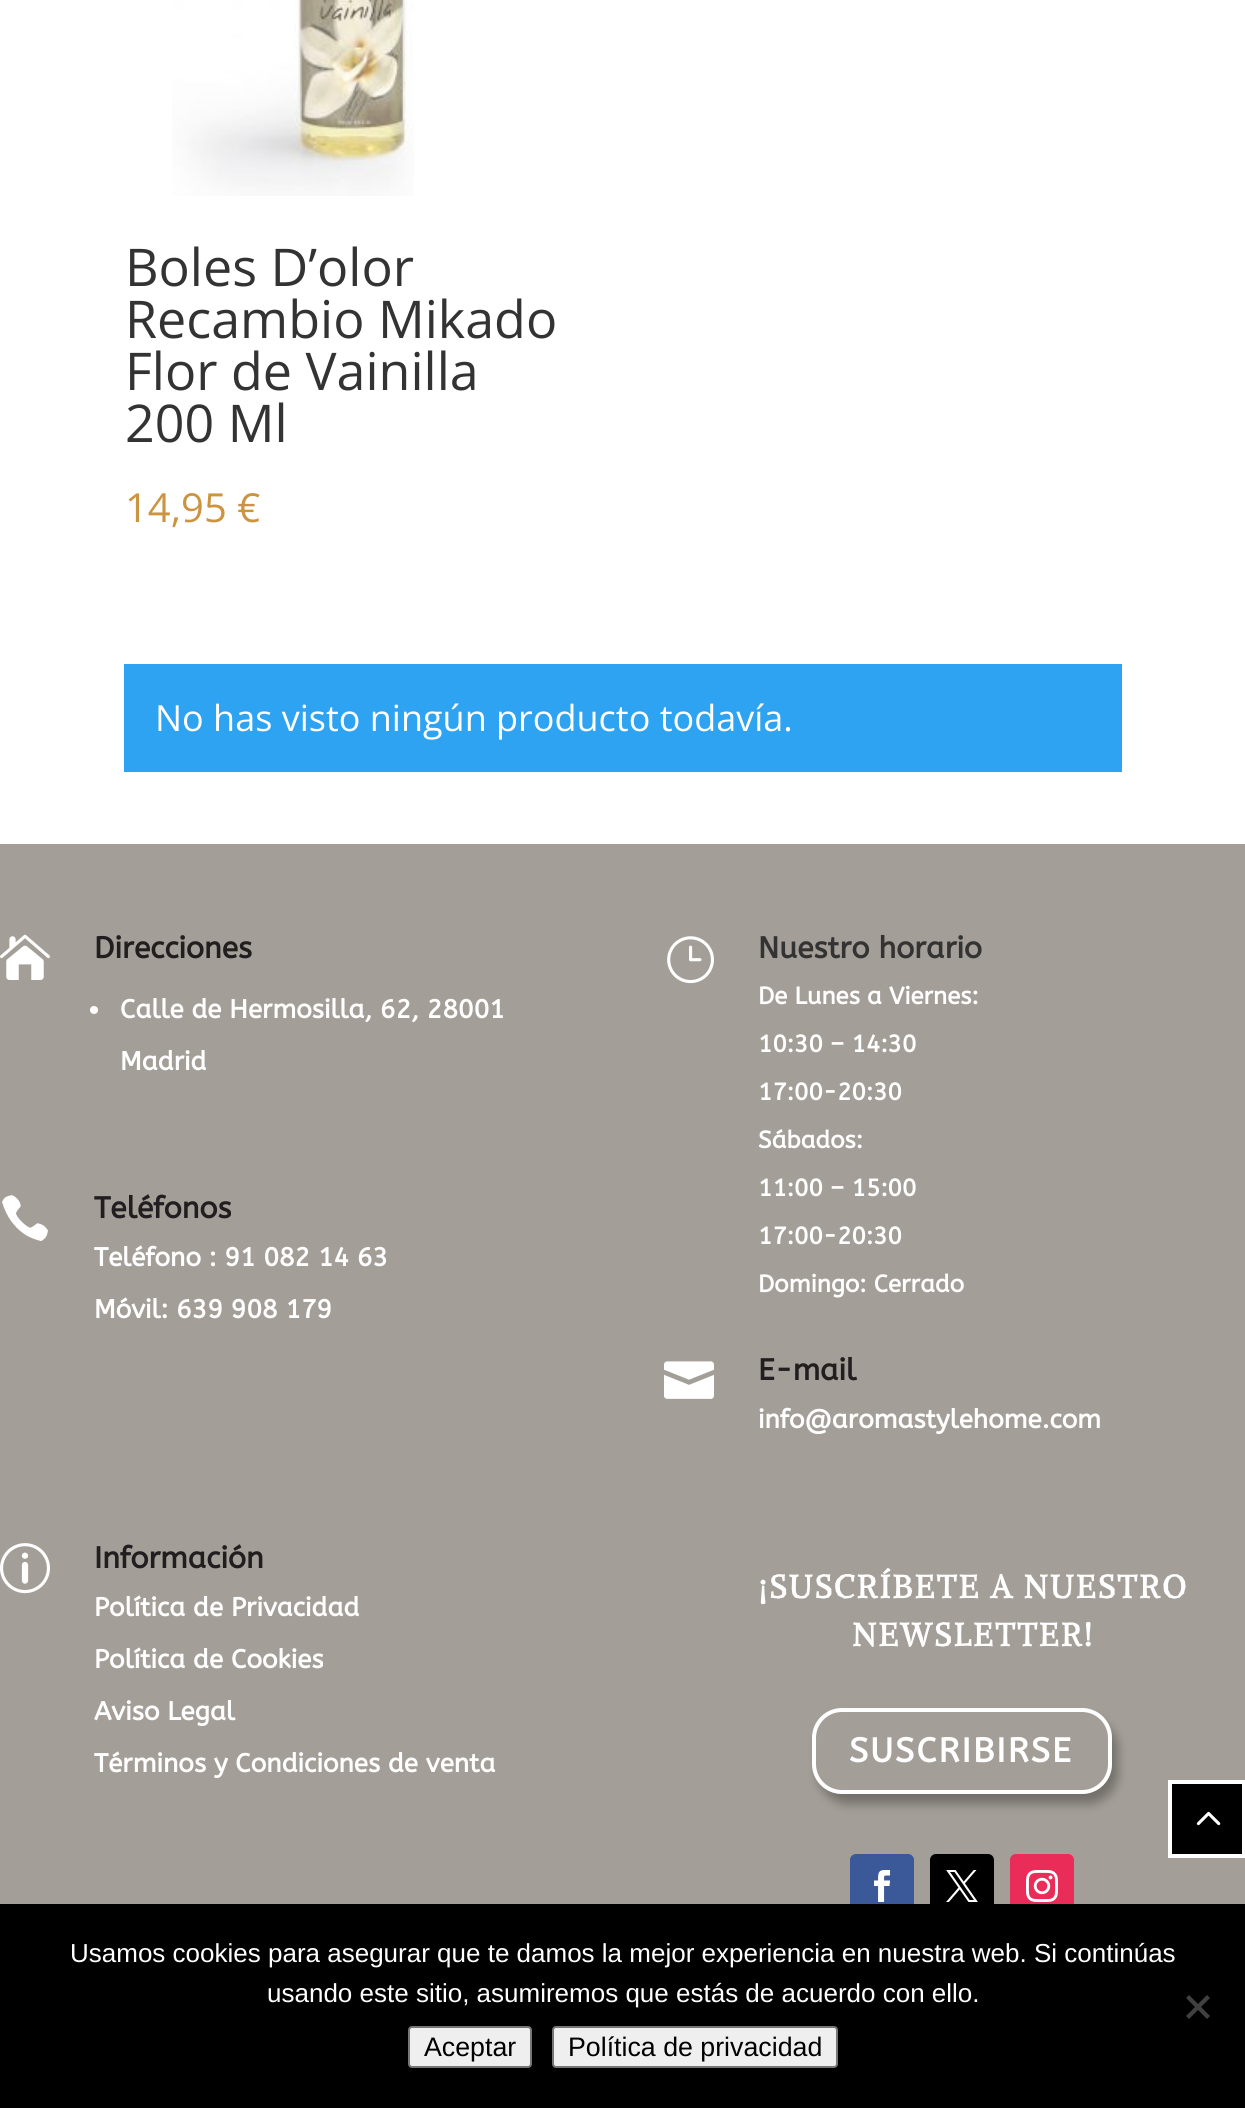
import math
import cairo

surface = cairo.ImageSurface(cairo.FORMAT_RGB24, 1245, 2108)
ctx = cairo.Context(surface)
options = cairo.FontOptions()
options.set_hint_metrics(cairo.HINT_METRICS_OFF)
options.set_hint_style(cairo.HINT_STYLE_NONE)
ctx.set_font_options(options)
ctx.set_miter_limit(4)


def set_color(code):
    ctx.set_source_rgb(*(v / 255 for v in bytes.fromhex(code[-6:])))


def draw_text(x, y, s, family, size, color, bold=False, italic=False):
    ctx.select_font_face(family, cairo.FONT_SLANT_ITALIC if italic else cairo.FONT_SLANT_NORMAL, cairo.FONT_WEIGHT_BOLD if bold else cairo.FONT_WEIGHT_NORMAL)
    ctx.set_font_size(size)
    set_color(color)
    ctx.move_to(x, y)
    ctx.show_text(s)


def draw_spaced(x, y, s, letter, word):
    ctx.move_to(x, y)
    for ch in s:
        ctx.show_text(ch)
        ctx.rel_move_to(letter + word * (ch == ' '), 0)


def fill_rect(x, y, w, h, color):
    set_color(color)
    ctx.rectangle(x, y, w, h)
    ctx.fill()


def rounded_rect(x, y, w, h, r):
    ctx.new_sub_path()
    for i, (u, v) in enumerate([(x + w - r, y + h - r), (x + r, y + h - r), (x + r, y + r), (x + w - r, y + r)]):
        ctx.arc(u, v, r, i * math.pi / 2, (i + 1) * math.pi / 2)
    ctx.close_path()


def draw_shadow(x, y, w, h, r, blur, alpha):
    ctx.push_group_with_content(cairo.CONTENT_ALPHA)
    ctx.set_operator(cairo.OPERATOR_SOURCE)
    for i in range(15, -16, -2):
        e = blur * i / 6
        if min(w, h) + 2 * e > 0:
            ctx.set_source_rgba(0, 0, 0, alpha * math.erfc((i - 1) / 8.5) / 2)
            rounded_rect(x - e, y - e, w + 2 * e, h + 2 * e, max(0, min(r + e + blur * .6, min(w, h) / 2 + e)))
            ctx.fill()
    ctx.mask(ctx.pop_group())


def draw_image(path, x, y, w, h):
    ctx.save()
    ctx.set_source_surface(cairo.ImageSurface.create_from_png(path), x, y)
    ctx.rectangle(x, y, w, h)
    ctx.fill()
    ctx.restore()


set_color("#a39e97")
ctx.paint()
fill_rect(0, 0, 1245, 844, "#ffffff")
draw_image("assets/img1.png", 172, 0, 242, 196)
draw_text(125, 286, "Boles D’olor", "Open Sans", 52, "#333333")
draw_text(125, 338, "Recambio Mikado", "Open Sans", 52, "#333333")
draw_text(125, 390, "Flor de Vainilla", "Open Sans", 52, "#333333")
draw_text(125, 442, "200 Ml", "Open Sans", 52, "#333333")
draw_text(125, 522, "14,95 €", "Open Sans", 40, "#cc9441")
fill_rect(124, 664, 998, 108, "#2ea3f2")
draw_text(155, 731, "No has visto ningún producto todavía.", "Open Sans", 36, "#ffffff")
draw_image("assets/img2.png", 0, 934, 50, 46)
draw_text(94, 958, "Direcciones", "ABeeZee", 30, "#221e20", bold=True)
set_color("#ffffff")
ctx.new_path()
ctx.arc(94, 1010, 4, 0, 2 * math.pi)
ctx.fill()
draw_text(120, 1018, "Calle de Hermosilla, 62, 28001", "ABeeZee", 26, "#ffffff", bold=True)
draw_text(120, 1070, "Madrid", "ABeeZee", 26, "#ffffff", bold=True)
draw_image("assets/img3.png", 2, 1195, 46, 46)
draw_text(94, 1218, "Teléfonos", "ABeeZee", 30, "#221e20", bold=True)
draw_text(94, 1266, "Teléfono : 91 082 14 63", "ABeeZee", 26, "#ffffff", bold=True)
draw_text(94, 1318, "Móvil: 639 908 179", "ABeeZee", 26, "#ffffff", bold=True)
draw_image("assets/img4.png", 667, 936, 47, 48)
draw_text(758, 958, "Nuestro horario", "ABeeZee", 30, "#333333", bold=True)
draw_text(758, 1004, "De Lunes a Viernes:", "ABeeZee", 24, "#ffffff", bold=True)
draw_text(758, 1052, "10:30 – 14:30", "ABeeZee", 24, "#ffffff", bold=True)
draw_text(758, 1100, "17:00-20:30", "ABeeZee", 24, "#ffffff", bold=True)
draw_text(758, 1148, "Sábados:", "ABeeZee", 24, "#ffffff", bold=True)
draw_text(758, 1196, "11:00 – 15:00", "ABeeZee", 24, "#ffffff", bold=True)
draw_text(758, 1244, "17:00-20:30", "ABeeZee", 24, "#ffffff", bold=True)
draw_text(758, 1292, "Domingo: Cerrado", "ABeeZee", 24, "#ffffff", bold=True)
draw_image("assets/img5.png", 664, 1361, 50, 38)
draw_text(758, 1380, "E-mail", "ABeeZee", 30, "#221e20", bold=True)
draw_text(758, 1428, "info@aromastylehome.com", "ABeeZee", 26, "#ffffff", bold=True)
draw_image("assets/img6.png", 0, 1543, 50, 51)
draw_text(94, 1568, "Información", "ABeeZee", 30, "#221e20", bold=True)
draw_text(94, 1616, "Política de Privacidad", "ABeeZee", 26, "#ffffff", bold=True)
draw_text(94, 1668, "Política de Cookies", "ABeeZee", 26, "#ffffff", bold=True)
draw_text(94, 1720, "Aviso Legal", "ABeeZee", 26, "#ffffff", bold=True)
draw_text(94, 1772, "Términos y Condiciones de venta", "ABeeZee", 26, "#ffffff", bold=True)
ctx.select_font_face("Alike Angular", cairo.FONT_SLANT_NORMAL, cairo.FONT_WEIGHT_BOLD)
ctx.set_font_size(32)
draw_spaced(759, 1598, "¡SUSCRÍBETE A NUESTRO", 2, 0)
draw_spaced(852, 1646, "NEWSLETTER!", 2, 0)
ctx.save()
ctx.set_fill_rule(cairo.FILL_RULE_EVEN_ODD)
ctx.new_path()
ctx.move_to(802, 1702)
ctx.line_to(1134, 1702)
ctx.line_to(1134, 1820)
ctx.line_to(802, 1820)
ctx.close_path()
ctx.move_to(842, 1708)
ctx.line_to(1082, 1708)
ctx.curve_to(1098.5, 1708, 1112, 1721.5, 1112, 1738)
ctx.line_to(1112, 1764)
ctx.curve_to(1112, 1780.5, 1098.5, 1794, 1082, 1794)
ctx.line_to(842, 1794)
ctx.curve_to(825.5, 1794, 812, 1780.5, 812, 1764)
ctx.line_to(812, 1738)
ctx.curve_to(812, 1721.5, 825.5, 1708, 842, 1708)
ctx.close_path()
ctx.clip()
set_color("#000000")
draw_shadow(818, 1718, 300, 86, 30, 5, 0.3)
ctx.restore()
rounded_rect(814, 1710, 296, 82, 28)
ctx.set_line_width(4)
ctx.stroke()
ctx.select_font_face("ABeeZee", cairo.FONT_SLANT_NORMAL, cairo.FONT_WEIGHT_BOLD)
ctx.set_font_size(34)
draw_spaced(849, 1762, "SUSCRIBIRSE", 2, 0)
set_color("#3b5998")
rounded_rect(850, 1854, 64, 64, 6)
ctx.fill()
draw_image("assets/img7.png", 874, 1870, 17, 32)
set_color("#000000")
rounded_rect(930, 1854, 64, 64, 6)
ctx.fill()
draw_image("assets/img8.png", 946, 1870, 32, 32)
set_color("#ea2c59")
rounded_rect(1010, 1854, 64, 64, 6)
ctx.fill()
draw_image("assets/img9.png", 1026, 1870, 32, 32)
set_color("#000000")
ctx.rectangle(1170, 1782, 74, 74)
ctx.fill_preserve()
set_color("#ffffff")
ctx.stroke()
draw_image("assets/img10.png", 1196, 1811, 25, 15)
fill_rect(0, 1904, 1245, 204, "#000000")
draw_text(70, 1962, "Usamos cookies para asegurar que te damos la mejor experiencia en nuestra web. Si continúas", "Liberation Sans", 26, "#ffffff")
draw_text(267, 2002, "usando este sitio, asumiremos que estás de acuerdo con ello.", "Liberation Sans", 26, "#ffffff")
set_color("#404040")
ctx.new_path()
ctx.move_to(1207, 1995)
ctx.line_to(1210, 1998)
ctx.line_to(1189, 2019)
ctx.line_to(1186, 2016)
ctx.close_path()
ctx.fill()
ctx.new_path()
ctx.move_to(1186, 1998)
ctx.line_to(1189, 1995)
ctx.line_to(1210, 2016)
ctx.line_to(1207, 2019)
ctx.close_path()
ctx.fill()
set_color("#efefef")
rounded_rect(409, 2027, 122, 40, 3)
ctx.fill_preserve()
set_color("#767676")
ctx.set_line_width(2)
ctx.stroke()
draw_text(424, 2056, "Aceptar", "Liberation Sans", 26.75, "#000000")
set_color("#efefef")
rounded_rect(553, 2027, 284, 40, 3)
ctx.fill_preserve()
set_color("#767676")
ctx.stroke()
draw_text(568, 2056, "Política de privacidad", "Liberation Sans", 26.75, "#000000")
surface.write_to_png("output.png")
